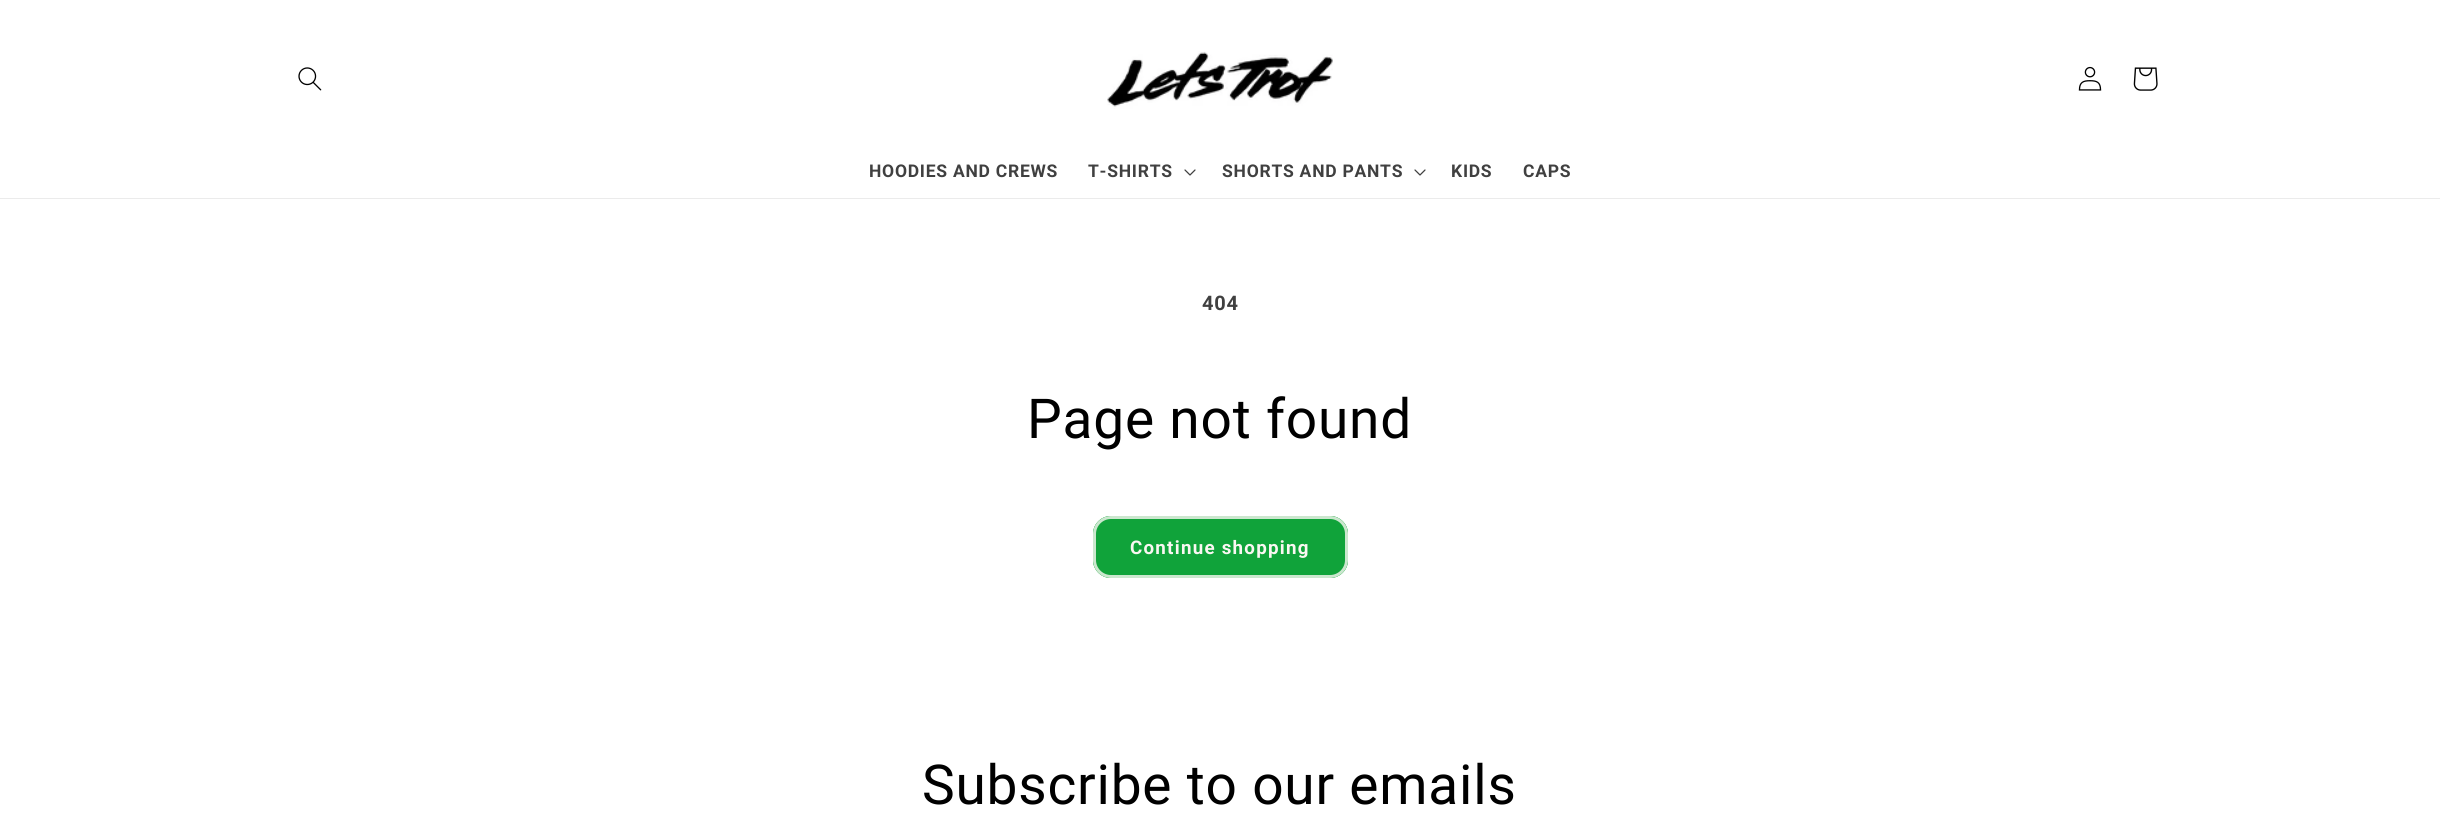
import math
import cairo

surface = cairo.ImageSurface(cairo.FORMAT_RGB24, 2440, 827)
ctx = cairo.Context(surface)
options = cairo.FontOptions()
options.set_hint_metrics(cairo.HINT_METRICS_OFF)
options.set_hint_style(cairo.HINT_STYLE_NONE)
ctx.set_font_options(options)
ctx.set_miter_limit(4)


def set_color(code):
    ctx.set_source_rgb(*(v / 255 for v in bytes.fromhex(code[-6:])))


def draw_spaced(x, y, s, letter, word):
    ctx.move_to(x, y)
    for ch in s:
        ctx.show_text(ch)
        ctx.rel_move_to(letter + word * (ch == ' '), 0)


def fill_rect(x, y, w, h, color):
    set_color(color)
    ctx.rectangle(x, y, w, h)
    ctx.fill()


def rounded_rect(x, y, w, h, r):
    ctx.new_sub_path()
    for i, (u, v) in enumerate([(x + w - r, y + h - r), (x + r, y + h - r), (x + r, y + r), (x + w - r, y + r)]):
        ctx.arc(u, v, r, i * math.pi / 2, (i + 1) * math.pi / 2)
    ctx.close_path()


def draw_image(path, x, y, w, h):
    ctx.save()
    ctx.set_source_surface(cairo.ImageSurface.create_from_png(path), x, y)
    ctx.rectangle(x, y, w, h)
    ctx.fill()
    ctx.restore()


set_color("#ffffff")
ctx.paint()
fill_rect(0, 198, 2440, 1, "#ebebeb")
draw_image("assets/img1.png", 298, 67, 24, 24)
draw_image("assets/img2.png", 1107, 51, 226, 58)
draw_image("assets/img3.png", 2078, 66, 24, 25)
draw_image("assets/img4.png", 2133, 67, 25, 24)
ctx.select_font_face("Roboto", cairo.FONT_SLANT_NORMAL, cairo.FONT_WEIGHT_BOLD)
ctx.set_font_size(17.5)
set_color("#404040")
draw_spaced(869, 177, "HOODIES AND CREWS", 0.75, 0)
draw_spaced(1088, 177, "T-SHIRTS", 0.75, 0)
draw_image("assets/img5.png", 1184, 169, 12, 7)
draw_spaced(1222, 177, "SHORTS AND PANTS", 0.75, 0)
draw_image("assets/img5.png", 1414, 169, 12, 7)
draw_spaced(1451, 177, "KIDS", 0.75, 0)
draw_spaced(1523, 177, "CAPS", 0.75, 0)
ctx.set_font_size(20)
draw_spaced(1202, 310, "404", 0.75, 0)
ctx.select_font_face("Roboto")
ctx.set_font_size(55)
set_color("#000000")
draw_spaced(1027, 438, "Page not found", 0.8, 0)
set_color("#10a33a")
rounded_rect(1093, 516, 255, 62, 18)
ctx.fill()
rounded_rect(1094.5, 517.5, 252, 59, 16.5)
ctx.set_line_width(3)
ctx.stroke()
rounded_rect(1094.5, 517.5, 252, 59, 16.5)
ctx.set_source_rgba(0.98, 0.969, 0.949, 0.8)
ctx.stroke()
ctx.select_font_face("Roboto", cairo.FONT_SLANT_NORMAL, cairo.FONT_WEIGHT_BOLD)
ctx.set_font_size(18.75)
set_color("#faf7f2")
draw_spaced(1130, 554, "Continue shopping", 1.25, 0)
ctx.select_font_face("Roboto")
ctx.set_font_size(55)
set_color("#000000")
draw_spaced(922, 804, "Subscribe to our emails", 0.8, 0)
surface.write_to_png("output.png")
